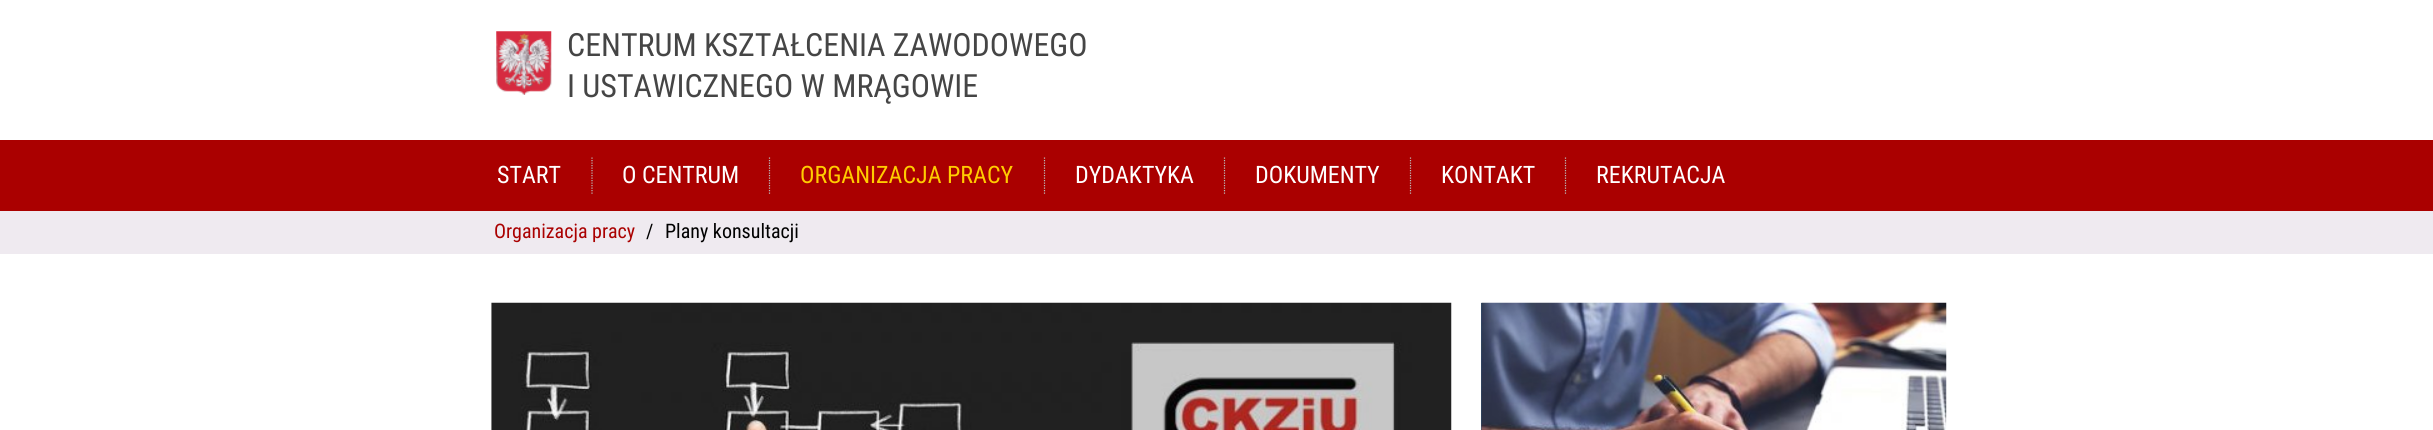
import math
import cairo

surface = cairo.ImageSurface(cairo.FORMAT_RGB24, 2433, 430)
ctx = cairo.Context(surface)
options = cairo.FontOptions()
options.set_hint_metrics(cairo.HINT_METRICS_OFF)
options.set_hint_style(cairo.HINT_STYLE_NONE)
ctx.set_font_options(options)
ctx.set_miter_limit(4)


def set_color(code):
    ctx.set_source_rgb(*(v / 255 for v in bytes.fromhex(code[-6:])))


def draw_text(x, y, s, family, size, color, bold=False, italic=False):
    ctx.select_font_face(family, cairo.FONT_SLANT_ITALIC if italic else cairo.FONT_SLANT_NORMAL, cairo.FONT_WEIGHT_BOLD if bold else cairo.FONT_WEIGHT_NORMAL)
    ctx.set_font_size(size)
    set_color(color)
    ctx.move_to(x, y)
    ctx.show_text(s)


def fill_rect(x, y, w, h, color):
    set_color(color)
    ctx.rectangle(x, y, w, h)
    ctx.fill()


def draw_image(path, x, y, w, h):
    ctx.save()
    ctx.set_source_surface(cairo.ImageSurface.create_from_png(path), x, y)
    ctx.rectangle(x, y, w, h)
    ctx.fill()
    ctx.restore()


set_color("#ffffff")
ctx.paint()
draw_image("assets/img1.png", 496, 31, 56, 64)
draw_text(567, 56, "CENTRUM KSZTAŁCENIA ZAWODOWEGO", "Roboto Condensed", 32, "#454545")
draw_text(567, 97, "I USTAWICZNEGO W MRĄGOWIE", "Roboto Condensed", 32, "#454545")
fill_rect(0, 140, 2433, 71, "#aa0000")
ctx.new_path()
ctx.move_to(592, 157.5)
ctx.line_to(592, 194)
set_color("#bbbbbb")
ctx.set_line_width(1.2)
ctx.set_dash([1.25, 1.25])
ctx.stroke()
draw_text(497, 183, "START", "Roboto Condensed", 24, "#ffffff")
ctx.new_path()
ctx.move_to(769.5, 157.5)
ctx.line_to(769.5, 194)
set_color("#bbbbbb")
ctx.stroke()
draw_text(622, 183, "O CENTRUM", "Roboto Condensed", 24, "#ffffff")
ctx.new_path()
ctx.move_to(1044.5, 157.5)
ctx.line_to(1044.5, 194)
set_color("#bbbbbb")
ctx.stroke()
draw_text(800, 183, "ORGANIZACJA PRACY", "Roboto Condensed", 24, "#ffcc00")
ctx.new_path()
ctx.move_to(1224.5, 157.5)
ctx.line_to(1224.5, 194)
set_color("#bbbbbb")
ctx.stroke()
draw_text(1075, 183, "DYDAKTYKA", "Roboto Condensed", 24, "#ffffff")
ctx.new_path()
ctx.move_to(1410.5, 157.5)
ctx.line_to(1410.5, 194)
set_color("#bbbbbb")
ctx.stroke()
draw_text(1255, 183, "DOKUMENTY", "Roboto Condensed", 24, "#ffffff")
ctx.new_path()
ctx.move_to(1565.5, 157.5)
ctx.line_to(1565.5, 194)
set_color("#bbbbbb")
ctx.stroke()
draw_text(1441, 183, "KONTAKT", "Roboto Condensed", 24, "#ffffff")
draw_text(1596, 183, "REKRUTACJA", "Roboto Condensed", 24, "#ffffff")
fill_rect(0, 211, 2433, 43, "#efeaf0")
draw_text(494, 238, "Organizacja pracy", "Roboto Condensed", 20, "#aa0000")
draw_text(646, 238, "/", "Roboto Condensed", 20, "#000000")
draw_text(665, 238, "Plany konsultacji", "Roboto Condensed", 20, "#000000")
draw_image("assets/img2.png", 491, 302, 961, 128)
fill_rect(1481, 303, 1, 127, "#335577")
draw_image("assets/img3.png", 1481, 302, 466, 128)
surface.write_to_png("output.png")
